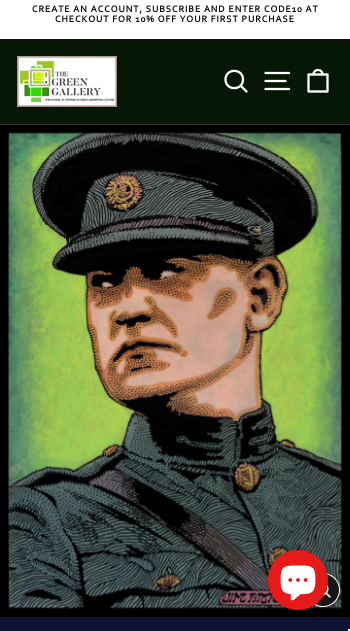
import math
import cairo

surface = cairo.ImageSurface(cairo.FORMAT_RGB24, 350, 631)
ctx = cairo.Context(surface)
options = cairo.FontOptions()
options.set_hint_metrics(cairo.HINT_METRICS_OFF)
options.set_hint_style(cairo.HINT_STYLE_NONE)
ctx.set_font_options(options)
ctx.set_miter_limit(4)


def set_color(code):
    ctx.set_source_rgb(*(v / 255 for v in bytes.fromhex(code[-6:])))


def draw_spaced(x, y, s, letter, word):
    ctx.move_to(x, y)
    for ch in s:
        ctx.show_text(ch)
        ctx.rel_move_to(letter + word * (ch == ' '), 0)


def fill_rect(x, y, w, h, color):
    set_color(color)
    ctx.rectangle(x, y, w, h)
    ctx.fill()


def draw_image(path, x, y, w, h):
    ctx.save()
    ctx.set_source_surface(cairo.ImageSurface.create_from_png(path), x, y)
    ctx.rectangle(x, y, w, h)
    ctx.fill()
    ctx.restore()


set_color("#0e1233")
ctx.paint()
fill_rect(0, 0, 350, 39, "#ffffff")
ctx.select_font_face("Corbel", cairo.FONT_SLANT_NORMAL, cairo.FONT_WEIGHT_BOLD)
ctx.set_font_size(9.45)
set_color("#000000")
draw_spaced(32, 12, "CREATE AN ACCOUNT, SUBSCRIBE AND ENTER CODE10 AT", 0.95, 0)
draw_spaced(55, 22, "CHECKOUT FOR 10% OFF YOUR FIRST PURCHASE", 0.95, 0)
fill_rect(0, 39, 350, 85, "#071706")
draw_image("assets/img1.png", 17, 56, 100, 51)
ctx.new_path()
ctx.move_to(243, 79.5)
ctx.curve_to(243, 91, 225.5, 91, 225.5, 79.5)
ctx.curve_to(225.5, 68, 243, 68, 243, 79.5)
ctx.close_path()
ctx.move_to(246.5, 91.5)
ctx.line_to(240.5, 85.5)
set_color("#ffffff")
ctx.set_line_width(2.3)
ctx.set_line_cap(cairo.LINE_CAP_ROUND)
ctx.set_line_join(cairo.LINE_JOIN_ROUND)
ctx.stroke()
ctx.new_path()
ctx.move_to(265.5, 73)
ctx.line_to(289, 73)
ctx.move_to(265.5, 81)
ctx.line_to(285.5, 81)
ctx.move_to(265.5, 89)
ctx.line_to(289, 89)
ctx.stroke()
ctx.new_path()
ctx.move_to(308.5, 74.5)
ctx.line_to(327.5, 74.5)
ctx.line_to(327.5, 91.5)
ctx.line_to(308.5, 91.5)
ctx.close_path()
ctx.move_to(313.5, 74.5)
ctx.curve_to(313.5, 68.5, 322.5, 68.5, 322.5, 74.5)
ctx.stroke()
fill_rect(0, 124, 350, 493, "#000000")
draw_image("assets/img2.png", 0, 124, 350, 485)
set_color("#151615")
ctx.arc(323, 590, 16.5, 0, 2 * math.pi)
ctx.fill_preserve()
set_color("#ffffff")
ctx.set_line_width(1)
ctx.set_line_cap(cairo.LINE_CAP_BUTT)
ctx.set_line_join(cairo.LINE_JOIN_MITER)
ctx.stroke()
draw_image("assets/img3.png", 323, 584, 8, 14)
set_color("#e71a1a")
ctx.arc(298, 580, 30, 0, 2 * math.pi)
ctx.fill()
draw_image("assets/img4.png", 280, 565, 36, 36)
fill_rect(348, 629, 2, 2, "#f5f5f5")
surface.write_to_png("output.png")
